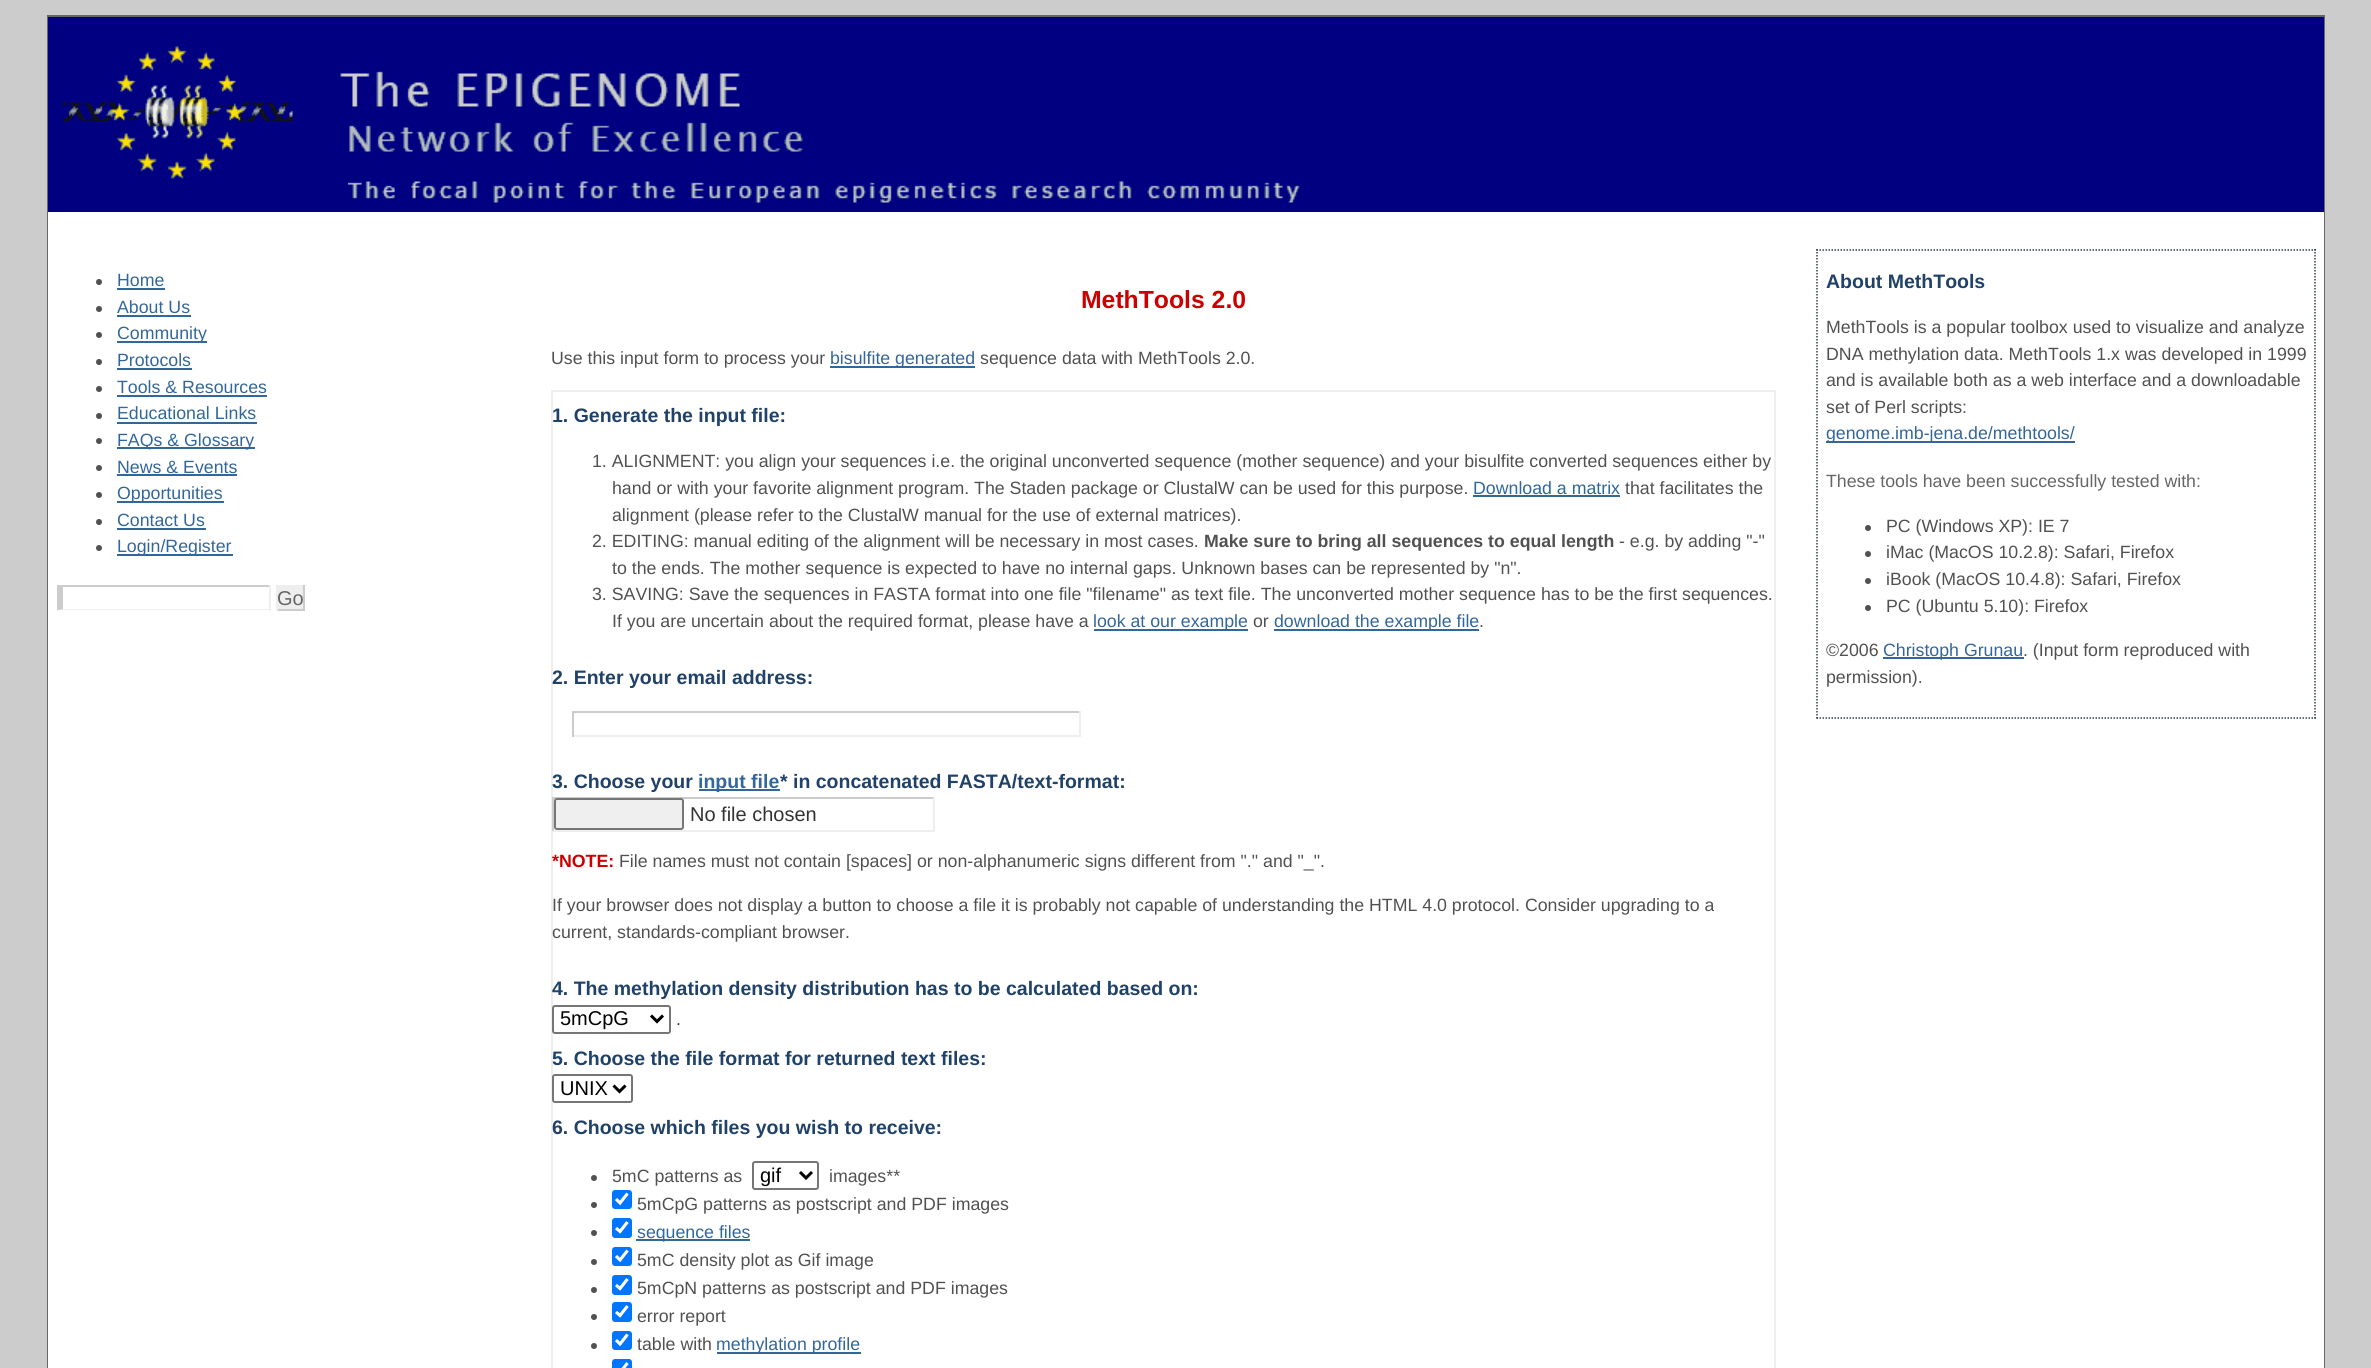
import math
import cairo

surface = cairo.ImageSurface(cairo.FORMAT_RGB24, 2371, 1368)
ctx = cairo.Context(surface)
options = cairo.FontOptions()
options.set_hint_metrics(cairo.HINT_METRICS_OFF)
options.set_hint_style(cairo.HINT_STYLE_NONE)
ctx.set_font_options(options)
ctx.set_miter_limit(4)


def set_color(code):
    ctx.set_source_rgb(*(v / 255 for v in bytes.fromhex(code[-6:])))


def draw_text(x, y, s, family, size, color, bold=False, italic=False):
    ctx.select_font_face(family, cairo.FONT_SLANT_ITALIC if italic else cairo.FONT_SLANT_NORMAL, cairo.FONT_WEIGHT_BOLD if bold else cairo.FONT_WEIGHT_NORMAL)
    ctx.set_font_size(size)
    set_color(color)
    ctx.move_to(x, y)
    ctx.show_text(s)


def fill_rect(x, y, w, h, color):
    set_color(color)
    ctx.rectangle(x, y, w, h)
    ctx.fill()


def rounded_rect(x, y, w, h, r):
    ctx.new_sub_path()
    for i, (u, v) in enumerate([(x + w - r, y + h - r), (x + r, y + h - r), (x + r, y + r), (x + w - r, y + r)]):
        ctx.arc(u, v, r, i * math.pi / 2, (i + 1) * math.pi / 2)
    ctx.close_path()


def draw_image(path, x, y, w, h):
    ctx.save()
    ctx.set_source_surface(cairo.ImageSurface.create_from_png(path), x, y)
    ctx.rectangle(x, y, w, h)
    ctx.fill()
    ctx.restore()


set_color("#cccccc")
ctx.paint()
ctx.rectangle(48, 16, 2276, 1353)
set_color("#666666")
ctx.stroke()
fill_rect(48, 17, 2276, 195, "#000080")
draw_image("assets/img1.png", 63, 46, 740, 133)
draw_image("assets/img2.png", 348, 181, 952, 22)
fill_rect(48, 212, 2276, 1156, "#ffffff")
set_color("#515151")
ctx.arc(99, 282, 3, 0, 2 * math.pi)
ctx.fill()
draw_text(117, 286, "Home", "Liberation Sans", 17.75, "#336699")
fill_rect(117, 288, 48, 2, "#336699")
set_color("#515151")
ctx.new_path()
ctx.arc(99, 309, 3, 0, 2 * math.pi)
ctx.fill()
draw_text(117, 313, "About Us", "Liberation Sans", 17.75, "#336699")
fill_rect(117, 315, 74, 2, "#336699")
set_color("#515151")
ctx.new_path()
ctx.arc(99, 335, 3, 0, 2 * math.pi)
ctx.fill()
fill_rect(117, 341, 90, 2, "#336699")
draw_text(117, 339, "Community", "Liberation Sans", 17.75, "#336699")
set_color("#515151")
ctx.new_path()
ctx.arc(99, 362, 3, 0, 2 * math.pi)
ctx.fill()
draw_text(117, 366, "Protocols", "Liberation Sans", 17.75, "#336699")
fill_rect(117, 368, 75, 2, "#336699")
set_color("#515151")
ctx.new_path()
ctx.arc(99, 389, 3, 0, 2 * math.pi)
ctx.fill()
draw_text(117, 393, "Tools & Resources", "Liberation Sans", 17.75, "#336699")
fill_rect(117, 395, 150, 2, "#336699")
set_color("#515151")
ctx.new_path()
ctx.arc(99, 416, 3, 0, 2 * math.pi)
ctx.fill()
draw_text(117, 419, "Educational Links", "Liberation Sans", 17.75, "#336699")
fill_rect(117, 422, 140, 2, "#336699")
set_color("#515151")
ctx.new_path()
ctx.arc(99, 441, 3, 0, 2 * math.pi)
ctx.fill()
fill_rect(117, 447, 138, 2, "#336699")
draw_text(117, 446, "FAQs & Glossary", "Liberation Sans", 17.75, "#336699")
set_color("#515151")
ctx.new_path()
ctx.arc(99, 468, 3, 0, 2 * math.pi)
ctx.fill()
draw_text(117, 473, "News & Events", "Liberation Sans", 17.75, "#336699")
fill_rect(117, 474, 120, 2, "#336699")
set_color("#515151")
ctx.new_path()
ctx.arc(99, 495, 3, 0, 2 * math.pi)
ctx.fill()
fill_rect(117, 501, 107, 2, "#336699")
draw_text(117, 499, "Opportunities", "Liberation Sans", 17.75, "#336699")
set_color("#515151")
ctx.new_path()
ctx.arc(99, 522, 3, 0, 2 * math.pi)
ctx.fill()
draw_text(117, 526, "Contact Us", "Liberation Sans", 17.75, "#336699")
fill_rect(117, 528, 89, 2, "#336699")
set_color("#515151")
ctx.new_path()
ctx.arc(99, 548, 3, 0, 2 * math.pi)
ctx.fill()
fill_rect(117, 554, 116, 2, "#336699")
draw_text(117, 552, "Login/Register", "Liberation Sans", 17.75, "#336699")
fill_rect(57, 585, 213, 2, "#cccccc")
fill_rect(269, 585, 2, 26, "#eeeeee")
ctx.new_path()
ctx.move_to(270, 610)
ctx.line_to(57, 610)
ctx.line_to(63, 609)
ctx.line_to(268, 609)
ctx.close_path()
ctx.fill()
set_color("#cccccc")
ctx.new_path()
ctx.move_to(57, 610.5)
ctx.line_to(57, 585)
ctx.line_to(63, 586.5)
ctx.line_to(63, 609)
ctx.close_path()
ctx.fill()
fill_rect(278, 585, 25, 24, "#eeeeee")
fill_rect(303, 585, 2, 26, "#cccccc")
fill_rect(276, 609, 29, 2, "#cccccc")
fill_rect(276, 585, 2, 26, "#eeeeee")
draw_text(277, 605, "Go", "Liberation Sans", 20, "#666666")
draw_text(1081, 308, "MethTools 2.0", "Liberation Sans", 24.75, "#cc0000", bold=True)
draw_text(551, 364, "Use this input form to process your", "Liberation Sans", 17.75, "#515151")
fill_rect(830, 366, 145, 2, "#336699")
draw_text(830, 364, "bisulfite generated", "Liberation Sans", 17.75, "#336699")
draw_text(980, 364, "sequence data with MethTools 2.0.", "Liberation Sans", 17.75, "#515151")
ctx.rectangle(552, 391, 1223, 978)
set_color("#eeeeee")
ctx.stroke()
draw_text(552, 422, "1. Generate the input file:", "Liberation Sans", 19.5, "#204168", bold=True)
draw_text(592, 467, "1. ALIGNMENT: you align your sequences i.e. the original unconverted sequence (mother sequence) and your bisulfite converted sequences either by", "Liberation Sans", 17.75, "#515151")
draw_text(612, 494, "hand or with your favorite alignment program. The Staden package or ClustalW can be used for this purpose.", "Liberation Sans", 17.75, "#515151")
draw_text(1473, 494, "Download a matrix", "Liberation Sans", 17.75, "#336699")
fill_rect(1473, 495, 147, 2, "#336699")
draw_text(1625, 494, "that facilitates the", "Liberation Sans", 17.75, "#515151")
draw_text(612, 521, "alignment (please refer to the ClustalW manual for the use of external matrices).", "Liberation Sans", 17.75, "#515151")
draw_text(592, 547, "2. EDITING: manual editing of the alignment will be necessary in most cases.", "Liberation Sans", 17.75, "#515151")
draw_text(1204, 547, "Make sure to bring all sequences to equal length", "Liberation Sans", 17.75, "#515151", bold=True)
draw_text(1619, 547, "- e.g. by adding \"-\"", "Liberation Sans", 17.75, "#515151")
draw_text(612, 574, "to the ends. The mother sequence is expected to have no internal gaps. Unknown bases can be represented by \"n\".", "Liberation Sans", 17.75, "#515151")
draw_text(592, 600, "3. SAVING: Save the sequences in FASTA format into one file \"filename\" as text file. The unconverted mother sequence has to be the first sequences.", "Liberation Sans", 17.75, "#515151")
draw_text(612, 627, "If you are uncertain about the required format, please have a", "Liberation Sans", 17.75, "#515151")
fill_rect(1094, 629, 154, 2, "#336699")
draw_text(1093, 627, "look at our example", "Liberation Sans", 17.75, "#336699")
draw_text(1253, 627, "or", "Liberation Sans", 17.75, "#515151")
fill_rect(1274, 629, 205, 2, "#336699")
draw_text(1274, 627, "download the example file", "Liberation Sans", 17.75, "#336699")
draw_text(1479, 627, ".", "Liberation Sans", 17.75, "#515151")
draw_text(552, 684, "2. Enter your email address:", "Liberation Sans", 19.5, "#204168", bold=True)
fill_rect(572, 711, 508, 2, "#cccccc")
fill_rect(1079, 711, 2, 26, "#eeeeee")
fill_rect(572, 735, 508, 2, "#eeeeee")
fill_rect(572, 711, 2, 26, "#cccccc")
draw_text(552, 788, "3. Choose your", "Liberation Sans", 19.5, "#204168", bold=True)
fill_rect(699, 789, 81, 2, "#336699")
draw_text(698, 788, "input file", "Liberation Sans", 19.5, "#336699", bold=True)
draw_text(780, 788, "* in concatenated FASTA/text-format:", "Liberation Sans", 19.5, "#204168", bold=True)
fill_rect(552, 797, 383, 2, "#cccccc")
fill_rect(933, 797, 2, 34, "#eeeeee")
fill_rect(552, 830, 383, 2, "#eeeeee")
fill_rect(552, 797, 2, 34, "#cccccc")
set_color("#efefef")
rounded_rect(555, 799, 128, 30, 2)
ctx.fill_preserve()
set_color("#767676")
ctx.stroke()
draw_text(690, 821, "No file chosen", "Liberation Sans", 20, "#333333")
draw_text(552, 867, "*NOTE:", "Liberation Sans", 17.75, "#cc0000", bold=True)
draw_text(619, 867, "File names must not contain [spaces] or non-alphanumeric signs different from \".\" and \"_\".", "Liberation Sans", 17.75, "#515151")
draw_text(552, 911, "If your browser does not display a button to choose a file it is probably not capable of understanding the HTML 4.0 protocol. Consider upgrading to a", "Liberation Sans", 17.75, "#515151")
draw_text(552, 938, "current, standards-compliant browser.", "Liberation Sans", 17.75, "#515151")
draw_text(552, 995, "4. The methylation density distribution has to be calculated based on:", "Liberation Sans", 19.5, "#204168", bold=True)
set_color("#ffffff")
rounded_rect(553, 1006, 117, 27, 2)
ctx.fill_preserve()
set_color("#767676")
ctx.stroke()
ctx.new_path()
ctx.move_to(651, 1015.5)
ctx.line_to(657, 1021.5)
ctx.line_to(663, 1015.5)
set_color("#000000")
ctx.set_line_width(3)
ctx.stroke()
draw_text(560, 1025, "5mCpG", "Liberation Sans", 20, "#000000")
draw_text(676, 1025, ".", "Liberation Sans", 17.75, "#333333")
draw_text(552, 1065, "5. Choose the file format for returned text files:", "Liberation Sans", 19.5, "#204168", bold=True)
set_color("#ffffff")
rounded_rect(553, 1075, 79, 27, 2)
ctx.fill_preserve()
set_color("#767676")
ctx.set_line_width(2)
ctx.stroke()
ctx.new_path()
ctx.move_to(613.5, 1085.5)
ctx.line_to(619.5, 1091.5)
ctx.line_to(625.5, 1085.5)
set_color("#000000")
ctx.set_line_width(3)
ctx.stroke()
draw_text(560, 1095, "UNIX", "Liberation Sans", 20, "#000000")
draw_text(552, 1134, "6. Choose which files you wish to receive:", "Liberation Sans", 19.5, "#204168", bold=True)
set_color("#515151")
ctx.new_path()
ctx.arc(594, 1178, 3, 0, 2 * math.pi)
ctx.fill()
draw_text(612, 1182, "5mC patterns as", "Liberation Sans", 17.75, "#515151")
rounded_rect(753, 1162, 65, 27, 2)
set_color("#767676")
ctx.set_line_width(2)
ctx.stroke()
ctx.new_path()
ctx.move_to(800, 1172)
ctx.line_to(806, 1178)
ctx.line_to(812, 1172)
set_color("#000000")
ctx.set_line_width(3)
ctx.stroke()
draw_text(760, 1182, "gif", "Liberation Sans", 20, "#000000")
draw_text(829, 1182, "images**", "Liberation Sans", 17.75, "#515151")
ctx.new_path()
ctx.arc(594, 1205, 3, 0, 2 * math.pi)
ctx.fill()
set_color("#0075ff")
rounded_rect(612, 1190, 20, 19, 3)
ctx.fill()
ctx.new_path()
ctx.move_to(616, 1199)
ctx.line_to(620, 1203)
ctx.line_to(627.5, 1193.5)
set_color("#ffffff")
ctx.set_line_width(3.1)
ctx.stroke()
draw_text(637, 1210, "5mCpG patterns as postscript and PDF images", "Liberation Sans", 17.75, "#515151")
ctx.new_path()
ctx.arc(594, 1233, 3, 0, 2 * math.pi)
ctx.fill()
set_color("#0075ff")
rounded_rect(612, 1218, 20, 20, 3)
ctx.fill()
ctx.new_path()
ctx.move_to(616, 1228)
ctx.line_to(620, 1231.5)
ctx.line_to(627.5, 1222)
set_color("#ffffff")
ctx.stroke()
fill_rect(636, 1239, 114, 2, "#336699")
draw_text(637, 1238, "sequence files", "Liberation Sans", 17.75, "#336699")
set_color("#515151")
ctx.new_path()
ctx.arc(594, 1262, 3, 0, 2 * math.pi)
ctx.fill()
set_color("#0075ff")
rounded_rect(612, 1247, 20, 19, 3)
ctx.fill()
ctx.new_path()
ctx.move_to(616, 1256)
ctx.line_to(620, 1260)
ctx.line_to(627.5, 1250.5)
set_color("#ffffff")
ctx.stroke()
draw_text(637, 1266, "5mC density plot as Gif image", "Liberation Sans", 17.75, "#515151")
ctx.new_path()
ctx.arc(594, 1290, 3, 0, 2 * math.pi)
ctx.fill()
set_color("#0075ff")
rounded_rect(612, 1275, 20, 20, 3)
ctx.fill()
ctx.new_path()
ctx.move_to(616, 1285)
ctx.line_to(620, 1288.5)
ctx.line_to(627.5, 1279)
set_color("#ffffff")
ctx.stroke()
draw_text(637, 1294, "5mCpN patterns as postscript and PDF images", "Liberation Sans", 17.75, "#515151")
ctx.new_path()
ctx.arc(594, 1317, 3, 0, 2 * math.pi)
ctx.fill()
set_color("#0075ff")
rounded_rect(612, 1302, 20, 20, 3)
ctx.fill()
ctx.new_path()
ctx.move_to(616, 1312)
ctx.line_to(620, 1315.5)
ctx.line_to(627.5, 1306)
set_color("#ffffff")
ctx.stroke()
draw_text(637, 1322, "error report", "Liberation Sans", 17.75, "#515151")
ctx.new_path()
ctx.arc(594, 1346, 3, 0, 2 * math.pi)
ctx.fill()
set_color("#0075ff")
rounded_rect(612, 1331, 20, 19, 3)
ctx.fill()
ctx.new_path()
ctx.move_to(616, 1340)
ctx.line_to(620, 1344)
ctx.line_to(627.5, 1334.5)
set_color("#ffffff")
ctx.stroke()
draw_text(637, 1350, "table with", "Liberation Sans", 17.75, "#515151")
fill_rect(717, 1352, 144, 2, "#336699")
draw_text(716, 1350, "methylation profile", "Liberation Sans", 17.75, "#336699")
set_color("#0075ff")
rounded_rect(612, 1359, 20, 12, 3)
ctx.fill()
ctx.new_path()
ctx.move_to(616, 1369)
ctx.line_to(620, 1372.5)
ctx.line_to(627.5, 1363)
set_color("#ffffff")
ctx.stroke()
ctx.new_path()
ctx.move_to(1816.5, 250)
ctx.line_to(2316, 250)
set_color("#304148")
ctx.set_line_width(1.5)
ctx.set_dash([1.5, 1.5])
ctx.stroke()
ctx.new_path()
ctx.move_to(2315, 249)
ctx.line_to(2315, 718.5)
ctx.stroke()
ctx.new_path()
ctx.move_to(1816.5, 718)
ctx.line_to(2316, 718)
ctx.stroke()
ctx.new_path()
ctx.move_to(1817, 249)
ctx.line_to(1817, 718.5)
ctx.stroke()
draw_text(1826, 288, "About MethTools", "Liberation Sans", 19.5, "#204168", bold=True)
draw_text(1826, 333, "MethTools is a popular toolbox used to visualize and analyze", "Liberation Sans", 17.75, "#515151")
draw_text(1826, 360, "DNA methylation data. MethTools 1.x was developed in 1999", "Liberation Sans", 17.75, "#515151")
draw_text(1826, 386, "and is available both as a web interface and a downloadable", "Liberation Sans", 17.75, "#515151")
draw_text(1826, 413, "set of Perl scripts:", "Liberation Sans", 17.75, "#515151")
fill_rect(1826, 441, 249, 2, "#336699")
draw_text(1826, 439, "genome.imb-jena.de/methtools/", "Liberation Sans", 17.75, "#336699")
draw_text(1826, 487, "These tools have been successfully tested with:", "Liberation Sans", 17.75, "#666666")
set_color("#515151")
ctx.new_path()
ctx.arc(1868, 528, 3, 0, 2 * math.pi)
ctx.fill()
draw_text(1886, 532, "PC (Windows XP): IE 7", "Liberation Sans", 17.75, "#515151")
ctx.new_path()
ctx.arc(1868, 554, 3, 0, 2 * math.pi)
ctx.fill()
draw_text(1886, 558, "iMac (MacOS 10.2.8): Safari, Firefox", "Liberation Sans", 17.75, "#515151")
ctx.new_path()
ctx.arc(1868, 581, 3, 0, 2 * math.pi)
ctx.fill()
draw_text(1886, 585, "iBook (MacOS 10.4.8): Safari, Firefox", "Liberation Sans", 17.75, "#515151")
ctx.new_path()
ctx.arc(1868, 608, 3, 0, 2 * math.pi)
ctx.fill()
draw_text(1886, 612, "PC (Ubuntu 5.10): Firefox", "Liberation Sans", 17.75, "#515151")
draw_text(1826, 656, "©2006", "Liberation Sans", 17.75, "#515151")
fill_rect(1883, 657, 141, 2, "#336699")
draw_text(1883, 656, "Christoph Grunau", "Liberation Sans", 17.75, "#336699")
draw_text(2023, 656, ". (Input form reproduced with", "Liberation Sans", 17.75, "#515151")
draw_text(1826, 683, "permission).", "Liberation Sans", 17.75, "#515151")
surface.write_to_png("output.png")
